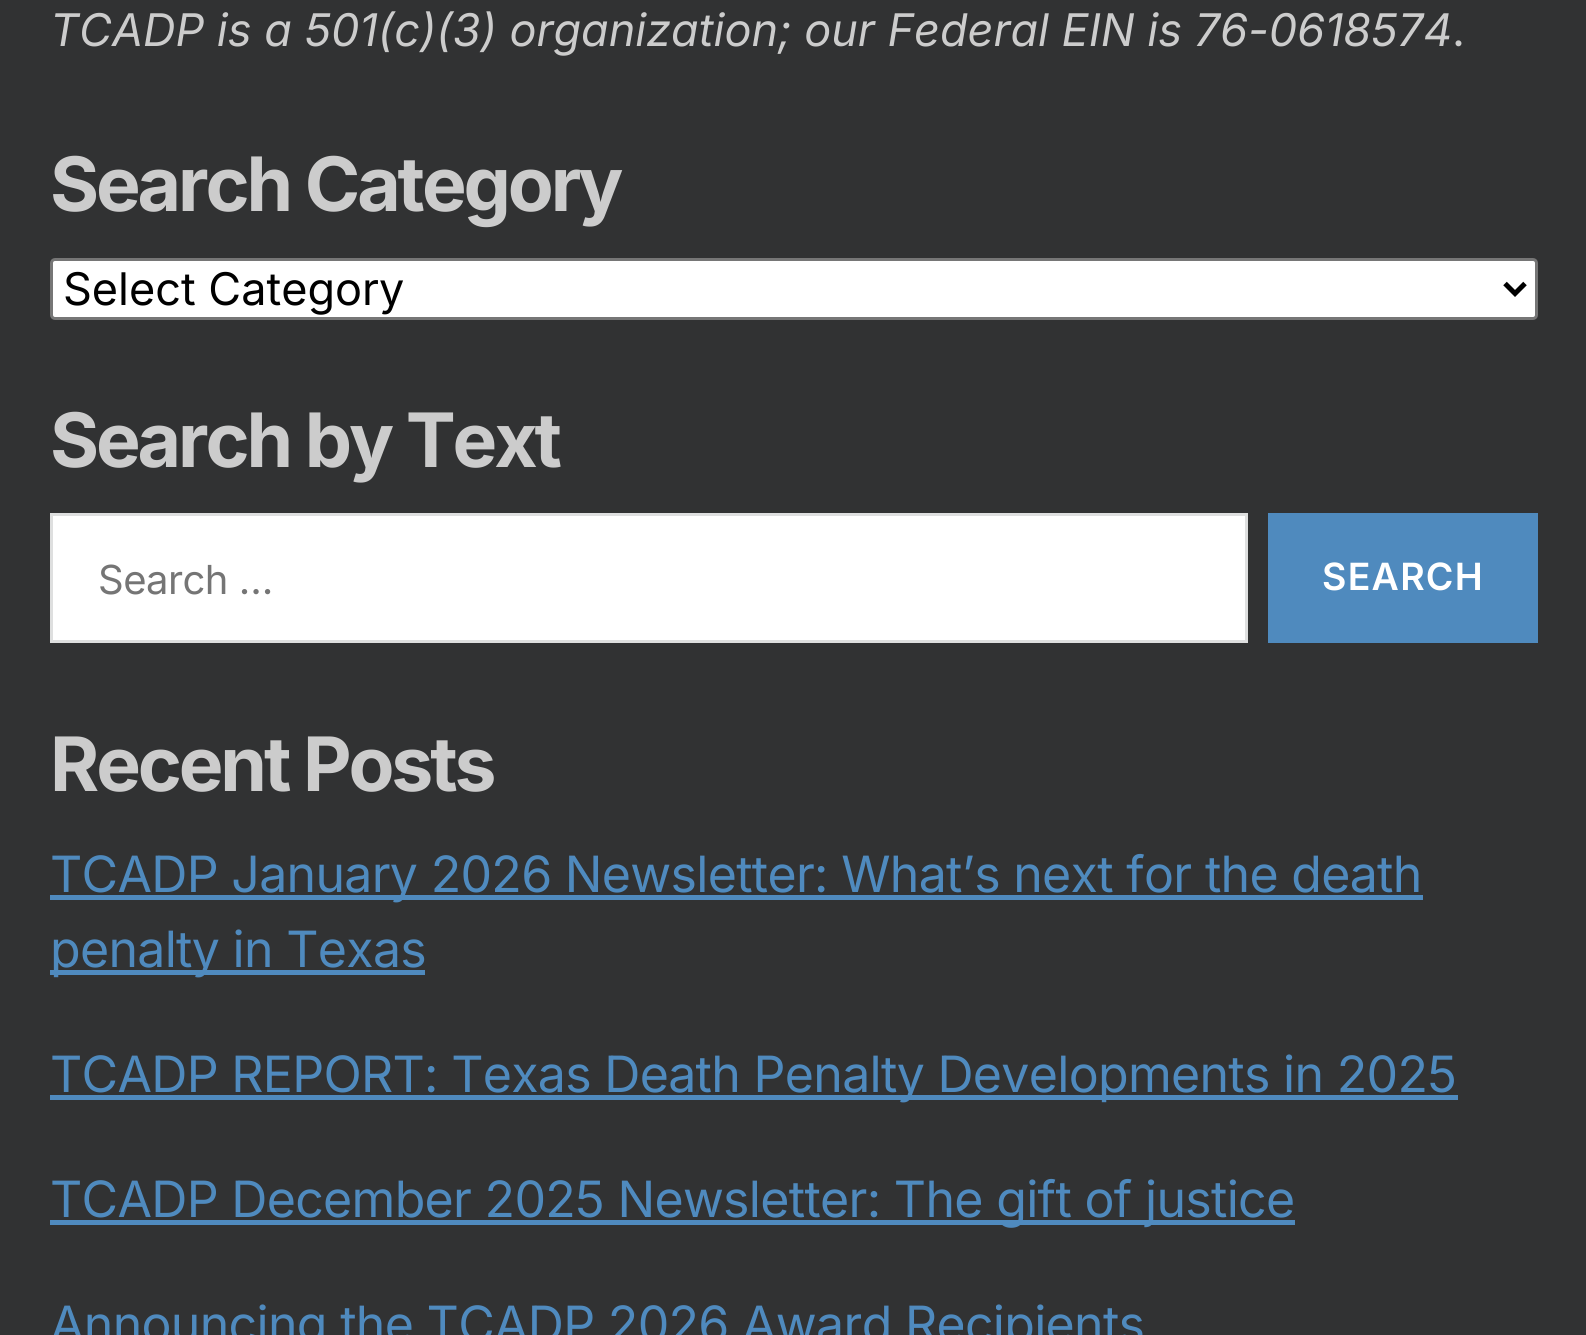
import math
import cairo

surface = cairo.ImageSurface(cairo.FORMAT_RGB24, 1586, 1335)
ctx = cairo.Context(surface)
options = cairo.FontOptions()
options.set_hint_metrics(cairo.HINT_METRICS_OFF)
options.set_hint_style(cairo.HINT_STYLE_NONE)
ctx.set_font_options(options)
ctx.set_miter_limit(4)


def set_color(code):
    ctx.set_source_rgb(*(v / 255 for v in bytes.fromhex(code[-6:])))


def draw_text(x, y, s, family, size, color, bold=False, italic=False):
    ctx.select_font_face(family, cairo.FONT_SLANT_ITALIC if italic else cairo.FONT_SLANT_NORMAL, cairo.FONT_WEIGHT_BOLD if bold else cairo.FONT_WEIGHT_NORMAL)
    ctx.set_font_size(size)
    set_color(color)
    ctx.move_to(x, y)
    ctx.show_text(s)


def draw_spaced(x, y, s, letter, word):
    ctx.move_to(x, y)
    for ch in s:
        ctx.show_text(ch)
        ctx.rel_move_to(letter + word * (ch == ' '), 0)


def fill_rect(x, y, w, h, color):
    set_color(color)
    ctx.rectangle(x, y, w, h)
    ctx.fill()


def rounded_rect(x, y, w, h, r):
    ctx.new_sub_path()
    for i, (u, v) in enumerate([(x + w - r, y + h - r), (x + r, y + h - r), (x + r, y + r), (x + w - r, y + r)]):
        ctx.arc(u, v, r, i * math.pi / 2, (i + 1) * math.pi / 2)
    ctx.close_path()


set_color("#313233")
ctx.paint()
draw_text(50, 46, "TCADP is a 501(c)(3) organization; our Federal EIN is 76-0618574", "Inter", 45, "#cccccc", italic=True)
draw_text(1452, 46, ".", "Inter", 45, "#cccccc")
ctx.select_font_face("Inter", cairo.FONT_SLANT_NORMAL, cairo.FONT_WEIGHT_BOLD)
ctx.set_font_size(75)
draw_spaced(50, 211, "Search Category", -3.1, 0)
set_color("#ffffff")
rounded_rect(51.5, 259.5, 1485, 59, 3.5)
ctx.fill_preserve()
set_color("#767676")
ctx.set_line_width(3)
ctx.stroke()
ctx.new_path()
ctx.move_to(1505, 283.5)
ctx.line_to(1515, 293.5)
ctx.line_to(1525, 283.5)
set_color("#000000")
ctx.set_line_width(5)
ctx.stroke()
draw_text(63, 305, "Select Category", "Inter", 45, "#000000")
ctx.select_font_face("Inter", cairo.FONT_SLANT_NORMAL, cairo.FONT_WEIGHT_BOLD)
ctx.set_font_size(75)
set_color("#cccccc")
draw_spaced(50, 467, "Search by Text", -3.1, 0)
set_color("#ffffff")
ctx.rectangle(51.5, 514.5, 1195, 127)
ctx.fill_preserve()
set_color("#dedfdf")
ctx.set_line_width(3)
ctx.stroke()
ctx.select_font_face("Inter")
ctx.set_font_size(40)
set_color("#757575")
draw_spaced(98, 594, "Search …", -0.5, 0)
fill_rect(1268, 513, 270, 130, "#4f8abe")
ctx.select_font_face("Inter SemiBold")
ctx.set_font_size(37.5)
set_color("#ffffff")
draw_spaced(1322, 590, "SEARCH", 1.25, 0)
ctx.select_font_face("Inter", cairo.FONT_SLANT_NORMAL, cairo.FONT_WEIGHT_BOLD)
ctx.set_font_size(75)
set_color("#cccccc")
draw_spaced(50, 791, "Recent Posts", -3.1, 0)
fill_rect(50, 895, 1373, 5, "#4f8abe")
ctx.select_font_face("Inter")
ctx.set_font_size(50)
draw_spaced(50, 892, "TCADP January 2026 Newsletter: What’s next for the death", -0.68, 0)
fill_rect(50, 970, 375, 5, "#4f8abe")
draw_spaced(50, 967, "penalty in Texas", -0.68, 0)
fill_rect(50, 1095, 1408, 5, "#4f8abe")
draw_spaced(50, 1092, "TCADP REPORT: Texas Death Penalty Developments in 2025", -0.68, 0)
fill_rect(50, 1220, 1245, 5, "#4f8abe")
draw_spaced(50, 1217, "TCADP December 2025 Newsletter: The gift of justice", -0.68, 0)
draw_spaced(50, 1342, "Announcing the TCADP 2026 Award Recipients", -0.68, 0)
surface.write_to_png("output.png")
